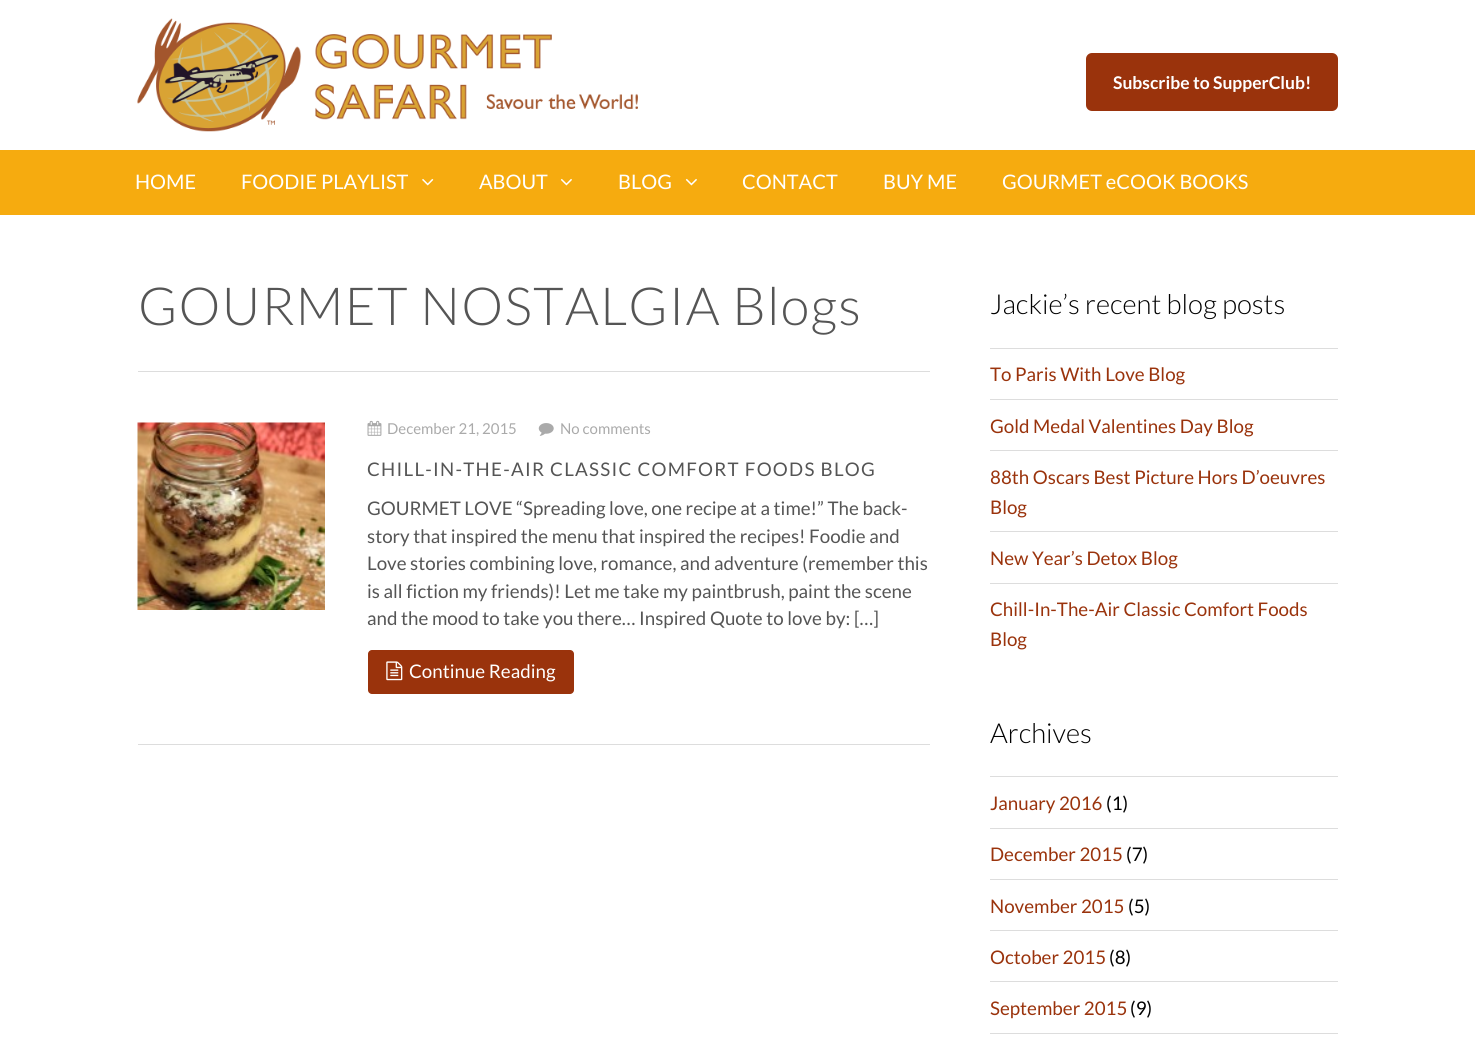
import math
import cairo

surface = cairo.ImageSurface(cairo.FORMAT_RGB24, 1475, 1062)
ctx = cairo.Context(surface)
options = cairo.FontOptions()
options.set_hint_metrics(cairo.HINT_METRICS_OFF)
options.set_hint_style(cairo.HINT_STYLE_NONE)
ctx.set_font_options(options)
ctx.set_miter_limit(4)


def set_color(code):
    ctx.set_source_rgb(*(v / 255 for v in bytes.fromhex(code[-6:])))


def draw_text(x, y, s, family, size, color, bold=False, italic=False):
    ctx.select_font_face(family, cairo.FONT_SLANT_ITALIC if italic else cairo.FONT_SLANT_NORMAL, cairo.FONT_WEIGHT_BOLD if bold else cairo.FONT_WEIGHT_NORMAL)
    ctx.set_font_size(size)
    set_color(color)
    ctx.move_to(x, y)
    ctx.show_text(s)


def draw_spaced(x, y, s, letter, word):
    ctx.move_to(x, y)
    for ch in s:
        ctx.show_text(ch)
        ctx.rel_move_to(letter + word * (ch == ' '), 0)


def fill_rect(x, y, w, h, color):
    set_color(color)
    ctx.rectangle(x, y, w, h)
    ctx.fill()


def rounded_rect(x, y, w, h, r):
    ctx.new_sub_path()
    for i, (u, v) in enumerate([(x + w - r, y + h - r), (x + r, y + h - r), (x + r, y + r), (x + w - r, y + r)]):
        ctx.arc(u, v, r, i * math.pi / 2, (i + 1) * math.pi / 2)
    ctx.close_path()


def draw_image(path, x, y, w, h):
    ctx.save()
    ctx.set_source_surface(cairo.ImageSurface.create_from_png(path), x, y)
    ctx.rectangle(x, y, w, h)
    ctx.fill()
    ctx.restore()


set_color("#ffffff")
ctx.paint()
draw_image("assets/img1.png", 137, 18, 501, 114)
set_color("#9a330c")
rounded_rect(1086, 53, 252, 58, 6)
ctx.fill()
draw_text(1113, 89, "Subscribe to SupperClub!", "Lato", 17.5, "#ffffff", bold=True)
fill_rect(0, 150, 1475, 65, "#f6ab0f")
draw_text(135, 189, "HOME", "Lato", 20, "#ffffff")
draw_text(241, 189, "FOODIE PLAYLIST", "Lato", 20, "#ffffff")
draw_image("assets/img2.png", 422, 178, 12, 8)
draw_text(479, 189, "ABOUT", "Lato", 20, "#ffffff")
draw_image("assets/img3.png", 560, 178, 12, 8)
draw_text(618, 189, "BLOG", "Lato", 20, "#ffffff")
draw_image("assets/img3.png", 685, 178, 12, 8)
draw_text(742, 189, "CONTACT", "Lato", 20, "#ffffff")
draw_text(883, 189, "BUY ME", "Lato", 20, "#ffffff")
draw_text(1002, 189, "GOURMET eCOOK BOOKS", "Lato", 20, "#ffffff")
ctx.select_font_face("Lato Light")
ctx.set_font_size(52.5)
set_color("#555555")
draw_spaced(138, 325, "GOURMET NOSTALGIA Blogs", 1.25, 0)
fill_rect(138, 744, 792, 1, "#dddddd")
fill_rect(138, 371, 792, 1, "#dddddd")
draw_image("assets/img4.png", 137, 422, 188, 188)
draw_image("assets/img5.png", 367, 420, 15, 16)
draw_text(387, 434, "December 21, 2015", "Lato", 15, "#aaaaaa")
draw_image("assets/img6.png", 538, 423, 16, 13)
draw_text(560, 434, "No comments", "Lato", 15, "#aaaaaa")
ctx.set_font_size(18.75)
set_color("#555555")
draw_spaced(367, 476, "CHILL-IN-THE-AIR CLASSIC COMFORT FOODS BLOG", 1.25, 0)
draw_text(367, 515, "GOURMET LOVE “Spreading love, one recipe at a time!” The back-", "Lato", 18.75, "#555555")
draw_text(367, 543, "story that inspired the menu that inspired the recipes! Foodie and", "Lato", 18.75, "#555555")
draw_text(367, 570, "Love stories combining love, romance, and adventure (remember this", "Lato", 18.75, "#555555")
draw_text(367, 598, "is all fiction my friends)! Let me take my paintbrush, paint the scene", "Lato", 18.75, "#555555")
draw_text(367, 625, "and the mood to take you there… Inspired Quote to love by: […]", "Lato", 18.75, "#555555")
set_color("#9a330c")
rounded_rect(368, 650, 206, 44, 4)
ctx.fill()
draw_image("assets/img7.png", 386, 661, 17, 20)
draw_text(409, 678, "Continue Reading", "Lato", 18.75, "#ffffff")
draw_text(990, 314, "Jackie’s recent blog posts", "Lato Light", 27.5, "#000000")
fill_rect(990, 348, 348, 1, "#dddddd")
draw_text(990, 381, "To Paris With Love Blog", "Lato", 18.75, "#9a330c")
fill_rect(990, 399, 348, 1, "#dddddd")
draw_text(990, 433, "Gold Medal Valentines Day Blog", "Lato", 18.75, "#9a330c")
fill_rect(990, 450, 348, 1, "#dddddd")
draw_text(990, 484, "88th Oscars Best Picture Hors D’oeuvres", "Lato", 18.75, "#9a330c")
draw_text(990, 514, "Blog", "Lato", 18.75, "#9a330c")
fill_rect(990, 531, 348, 1, "#dddddd")
draw_text(990, 565, "New Year’s Detox Blog", "Lato", 18.75, "#9a330c")
fill_rect(990, 583, 348, 1, "#dddddd")
draw_text(990, 616, "Chill-In-The-Air Classic Comfort Foods", "Lato", 18.75, "#9a330c")
draw_text(990, 646, "Blog", "Lato", 18.75, "#9a330c")
draw_text(990, 743, "Archives", "Lato Light", 27.5, "#000000")
fill_rect(990, 776, 348, 1, "#dddddd")
draw_text(990, 810, "January 2016", "Lato", 18.75, "#9a330c")
draw_text(1106, 810, "(1)", "Lato", 18.75, "#000000")
fill_rect(990, 828, 348, 1, "#dddddd")
draw_text(990, 861, "December 2015", "Lato", 18.75, "#9a330c")
draw_text(1126, 861, "(7)", "Lato", 18.75, "#000000")
fill_rect(990, 879, 348, 1, "#dddddd")
draw_text(990, 913, "November 2015", "Lato", 18.75, "#9a330c")
draw_text(1128, 913, "(5)", "Lato", 18.75, "#000000")
fill_rect(990, 930, 348, 1, "#dddddd")
draw_text(990, 964, "October 2015", "Lato", 18.75, "#9a330c")
draw_text(1109, 964, "(8)", "Lato", 18.75, "#000000")
fill_rect(990, 981, 348, 1, "#dddddd")
draw_text(990, 1015, "September 2015", "Lato", 18.75, "#9a330c")
draw_text(1130, 1015, "(9)", "Lato", 18.75, "#000000")
fill_rect(990, 1033, 348, 1, "#dddddd")
surface.write_to_png("output.png")
